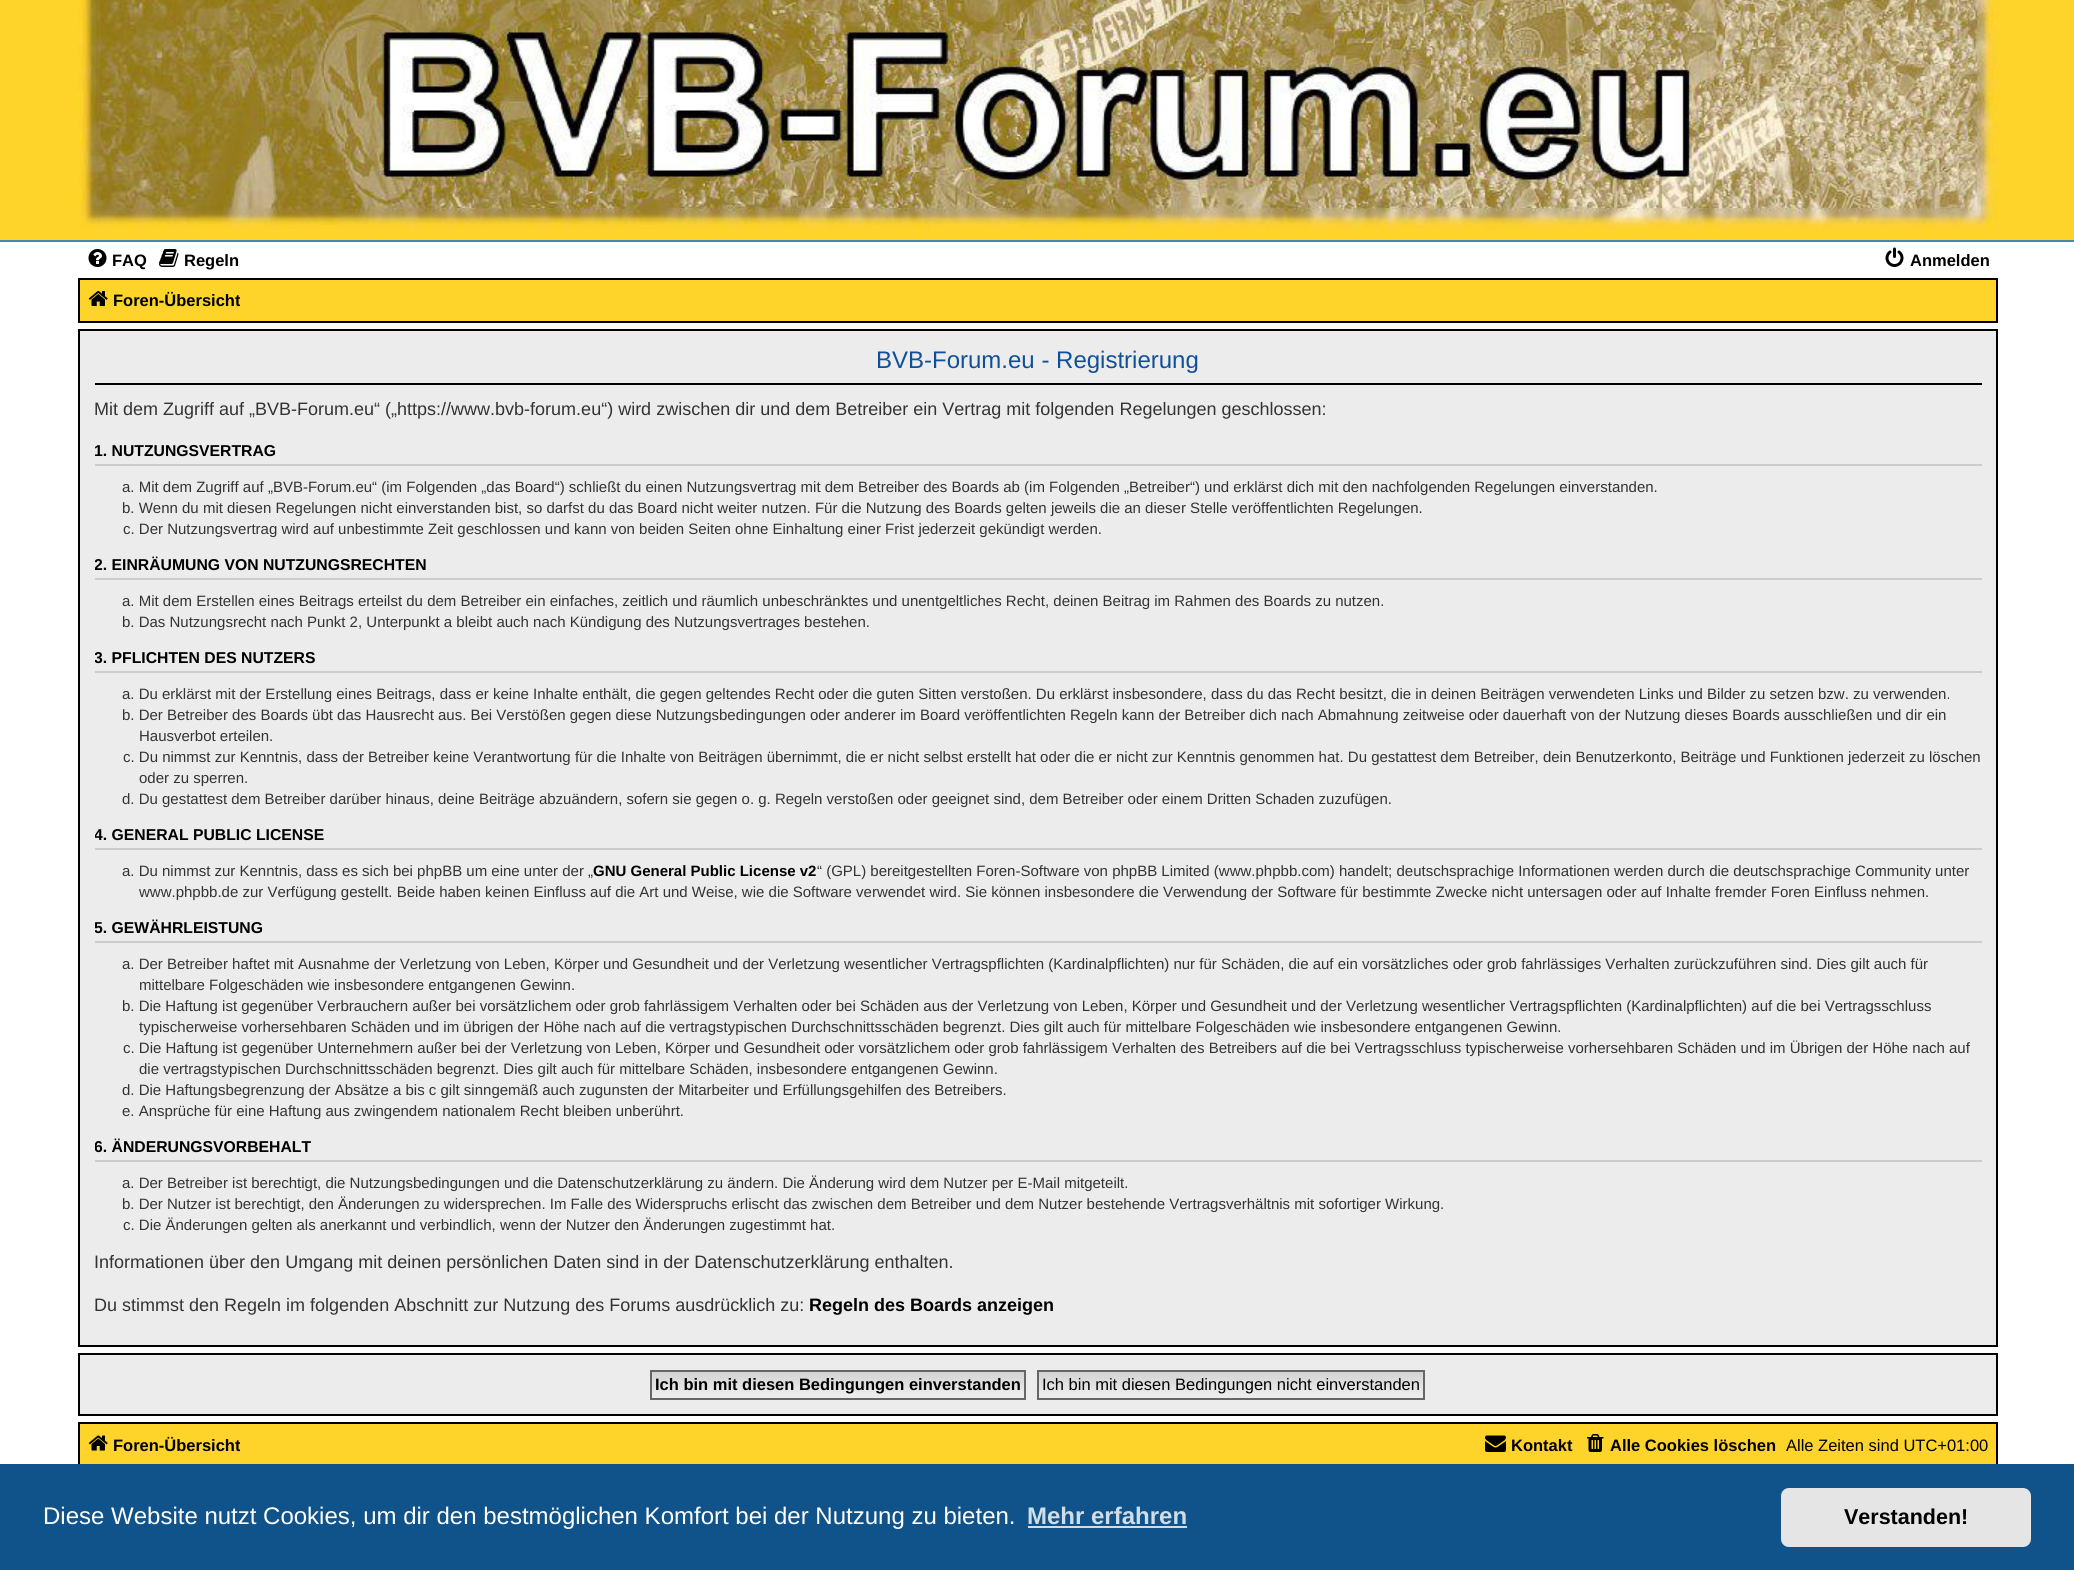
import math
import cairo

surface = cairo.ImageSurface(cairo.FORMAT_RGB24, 2074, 1570)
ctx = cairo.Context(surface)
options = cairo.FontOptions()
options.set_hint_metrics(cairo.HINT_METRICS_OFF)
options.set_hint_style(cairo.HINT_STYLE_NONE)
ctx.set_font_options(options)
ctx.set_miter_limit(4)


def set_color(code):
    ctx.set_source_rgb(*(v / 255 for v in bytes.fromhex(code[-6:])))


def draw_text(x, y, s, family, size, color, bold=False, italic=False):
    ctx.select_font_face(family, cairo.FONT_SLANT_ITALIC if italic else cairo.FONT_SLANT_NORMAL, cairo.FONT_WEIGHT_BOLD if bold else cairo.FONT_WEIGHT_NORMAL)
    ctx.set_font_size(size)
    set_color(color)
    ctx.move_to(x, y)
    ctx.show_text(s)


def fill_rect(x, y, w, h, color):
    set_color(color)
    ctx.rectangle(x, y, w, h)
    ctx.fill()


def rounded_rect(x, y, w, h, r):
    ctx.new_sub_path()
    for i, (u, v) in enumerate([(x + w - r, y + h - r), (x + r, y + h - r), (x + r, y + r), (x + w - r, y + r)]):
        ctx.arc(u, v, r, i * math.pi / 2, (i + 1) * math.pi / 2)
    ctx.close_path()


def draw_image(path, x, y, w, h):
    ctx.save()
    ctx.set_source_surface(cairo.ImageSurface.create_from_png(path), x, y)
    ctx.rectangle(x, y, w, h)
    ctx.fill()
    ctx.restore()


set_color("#ffffff")
ctx.paint()
fill_rect(0, 0, 2074, 240, "#fed32a")
fill_rect(0, 240, 2074, 2, "#4787a7")
draw_image("assets/img1.png", 78, 0, 1920, 229)
draw_image("assets/img2.png", 88, 249, 19, 18)
draw_text(112, 266, "FAQ", "Liberation Sans", 16.5, "#000000", bold=True)
draw_image("assets/img3.png", 159, 249, 20, 18)
draw_text(184, 266, "Regeln", "Liberation Sans", 16.5, "#000000", bold=True)
draw_image("assets/img4.png", 1885, 247, 19, 20)
draw_text(1910, 266, "Anmelden", "Liberation Sans", 16.5, "#000000", bold=True)
set_color("#fed32a")
ctx.rectangle(79, 279, 1918, 43)
ctx.fill_preserve()
set_color("#000000")
ctx.stroke()
draw_image("assets/img5.png", 88, 291, 20, 15)
ctx.save()
ctx.rectangle(87, 282, 153, 36)
ctx.clip()
draw_text(113, 306, "Foren-Übersicht", "Liberation Sans", 16.5, "#000000", bold=True)
ctx.restore()
set_color("#ececec")
ctx.rectangle(79, 330, 1918, 1016)
ctx.fill_preserve()
set_color("#000000")
ctx.stroke()
fill_rect(95, 383, 1887, 2, "#000000")
draw_text(876, 368, "BVB-Forum.eu - Registrierung", "Liberation Sans", 24, "#115098")
draw_text(94, 415, "Mit dem Zugriff auf „BVB-Forum.eu“ („https://www.bvb-forum.eu“) wird zwischen dir und dem Betreiber ein Vertrag mit folgenden Regelungen geschlossen:", "Liberation Sans", 18, "#333333")
fill_rect(95, 464, 1887, 2, "#cccccc")
ctx.save()
ctx.rectangle(95, 338, 1887, 1000)
ctx.clip()
draw_text(94, 456, "1. NUTZUNGSVERTRAG", "Liberation Sans", 15.75, "#000000", bold=True)
ctx.restore()
draw_text(122, 492, "a. Mit dem Zugriff auf „BVB-Forum.eu“ (im Folgenden „das Board“) schließt du einen Nutzungsvertrag mit dem Betreiber des Boards ab (im Folgenden „Betreiber“) und erklärst dich mit den nachfolgenden Regelungen einverstanden.", "Liberation Sans", 15, "#333333")
draw_text(122, 513, "b. Wenn du mit diesen Regelungen nicht einverstanden bist, so darfst du das Board nicht weiter nutzen. Für die Nutzung des Boards gelten jeweils die an dieser Stelle veröffentlichten Regelungen.", "Liberation Sans", 15, "#333333")
draw_text(123, 534, "c. Der Nutzungsvertrag wird auf unbestimmte Zeit geschlossen und kann von beiden Seiten ohne Einhaltung einer Frist jederzeit gekündigt werden.", "Liberation Sans", 15, "#333333")
fill_rect(95, 578, 1887, 2, "#cccccc")
ctx.save()
ctx.rectangle(95, 338, 1887, 1000)
ctx.clip()
draw_text(94, 570, "2. EINRÄUMUNG VON NUTZUNGSRECHTEN", "Liberation Sans", 15.75, "#000000", bold=True)
ctx.restore()
draw_text(122, 606, "a. Mit dem Erstellen eines Beitrags erteilst du dem Betreiber ein einfaches, zeitlich und räumlich unbeschränktes und unentgeltliches Recht, deinen Beitrag im Rahmen des Boards zu nutzen.", "Liberation Sans", 15, "#333333")
draw_text(122, 627, "b. Das Nutzungsrecht nach Punkt 2, Unterpunkt a bleibt auch nach Kündigung des Nutzungsvertrages bestehen.", "Liberation Sans", 15, "#333333")
fill_rect(95, 671, 1887, 2, "#cccccc")
ctx.save()
ctx.rectangle(95, 338, 1887, 1000)
ctx.clip()
draw_text(94, 663, "3. PFLICHTEN DES NUTZERS", "Liberation Sans", 15.75, "#000000", bold=True)
ctx.restore()
draw_text(122, 699, "a. Du erklärst mit der Erstellung eines Beitrags, dass er keine Inhalte enthält, die gegen geltendes Recht oder die guten Sitten verstoßen. Du erklärst insbesondere, dass du das Recht besitzt, die in deinen Beiträgen verwendeten Links und Bilder zu setzen bzw. zu verwenden.", "Liberation Sans", 15, "#333333")
draw_text(122, 720, "b. Der Betreiber des Boards übt das Hausrecht aus. Bei Verstößen gegen diese Nutzungsbedingungen oder anderer im Board veröffentlichten Regeln kann der Betreiber dich nach Abmahnung zeitweise oder dauerhaft von der Nutzung dieses Boards ausschließen und dir ein", "Liberation Sans", 15, "#333333")
draw_text(139, 741, "Hausverbot erteilen.", "Liberation Sans", 15, "#333333")
draw_text(123, 762, "c. Du nimmst zur Kenntnis, dass der Betreiber keine Verantwortung für die Inhalte von Beiträgen übernimmt, die er nicht selbst erstellt hat oder die er nicht zur Kenntnis genommen hat. Du gestattest dem Betreiber, dein Benutzerkonto, Beiträge und Funktionen jederzeit zu löschen", "Liberation Sans", 15, "#333333")
draw_text(139, 783, "oder zu sperren.", "Liberation Sans", 15, "#333333")
draw_text(122, 804, "d. Du gestattest dem Betreiber darüber hinaus, deine Beiträge abzuändern, sofern sie gegen o. g. Regeln verstoßen oder geeignet sind, dem Betreiber oder einem Dritten Schaden zuzufügen.", "Liberation Sans", 15, "#333333")
fill_rect(95, 848, 1887, 2, "#cccccc")
ctx.save()
ctx.rectangle(95, 338, 1887, 1000)
ctx.clip()
draw_text(94, 840, "4. GENERAL PUBLIC LICENSE", "Liberation Sans", 15.75, "#000000", bold=True)
ctx.restore()
draw_text(122, 876, "a. Du nimmst zur Kenntnis, dass es sich bei phpBB um eine unter der „", "Liberation Sans", 15, "#333333")
draw_text(593, 876, "GNU General Public License v2", "Liberation Sans", 15, "#000000", bold=True)
draw_text(817, 876, "“ (GPL) bereitgestellten Foren-Software von phpBB Limited (www.phpbb.com) handelt; deutschsprachige Informationen werden durch die deutschsprachige Community unter", "Liberation Sans", 15, "#333333")
draw_text(139, 897, "www.phpbb.de zur Verfügung gestellt. Beide haben keinen Einfluss auf die Art und Weise, wie die Software verwendet wird. Sie können insbesondere die Verwendung der Software für bestimmte Zwecke nicht untersagen oder auf Inhalte fremder Foren Einfluss nehmen.", "Liberation Sans", 15, "#333333")
fill_rect(95, 941, 1887, 2, "#cccccc")
ctx.save()
ctx.rectangle(95, 338, 1887, 1000)
ctx.clip()
draw_text(94, 933, "5. GEWÄHRLEISTUNG", "Liberation Sans", 15.75, "#000000", bold=True)
ctx.restore()
draw_text(122, 969, "a. Der Betreiber haftet mit Ausnahme der Verletzung von Leben, Körper und Gesundheit und der Verletzung wesentlicher Vertragspflichten (Kardinalpflichten) nur für Schäden, die auf ein vorsätzliches oder grob fahrlässiges Verhalten zurückzuführen sind. Dies gilt auch für", "Liberation Sans", 15, "#333333")
draw_text(139, 990, "mittelbare Folgeschäden wie insbesondere entgangenen Gewinn.", "Liberation Sans", 15, "#333333")
draw_text(122, 1011, "b. Die Haftung ist gegenüber Verbrauchern außer bei vorsätzlichem oder grob fahrlässigem Verhalten oder bei Schäden aus der Verletzung von Leben, Körper und Gesundheit und der Verletzung wesentlicher Vertragspflichten (Kardinalpflichten) auf die bei Vertragsschluss", "Liberation Sans", 15, "#333333")
draw_text(139, 1032, "typischerweise vorhersehbaren Schäden und im übrigen der Höhe nach auf die vertragstypischen Durchschnittsschäden begrenzt. Dies gilt auch für mittelbare Folgeschäden wie insbesondere entgangenen Gewinn.", "Liberation Sans", 15, "#333333")
draw_text(123, 1053, "c. Die Haftung ist gegenüber Unternehmern außer bei der Verletzung von Leben, Körper und Gesundheit oder vorsätzlichem oder grob fahrlässigem Verhalten des Betreibers auf die bei Vertragsschluss typischerweise vorhersehbaren Schäden und im Übrigen der Höhe nach auf", "Liberation Sans", 15, "#333333")
draw_text(139, 1074, "die vertragstypischen Durchschnittsschäden begrenzt. Dies gilt auch für mittelbare Schäden, insbesondere entgangenen Gewinn.", "Liberation Sans", 15, "#333333")
draw_text(122, 1095, "d. Die Haftungsbegrenzung der Absätze a bis c gilt sinngemäß auch zugunsten der Mitarbeiter und Erfüllungsgehilfen des Betreibers.", "Liberation Sans", 15, "#333333")
draw_text(122, 1116, "e. Ansprüche für eine Haftung aus zwingendem nationalem Recht bleiben unberührt.", "Liberation Sans", 15, "#333333")
fill_rect(95, 1160, 1887, 2, "#cccccc")
ctx.save()
ctx.rectangle(95, 338, 1887, 1000)
ctx.clip()
draw_text(94, 1152, "6. ÄNDERUNGSVORBEHALT", "Liberation Sans", 15.75, "#000000", bold=True)
ctx.restore()
draw_text(122, 1188, "a. Der Betreiber ist berechtigt, die Nutzungsbedingungen und die Datenschutzerklärung zu ändern. Die Änderung wird dem Nutzer per E-Mail mitgeteilt.", "Liberation Sans", 15, "#333333")
draw_text(122, 1209, "b. Der Nutzer ist berechtigt, den Änderungen zu widersprechen. Im Falle des Widerspruchs erlischt das zwischen dem Betreiber und dem Nutzer bestehende Vertragsverhältnis mit sofortiger Wirkung.", "Liberation Sans", 15, "#333333")
draw_text(123, 1230, "c. Die Änderungen gelten als anerkannt und verbindlich, wenn der Nutzer den Änderungen zugestimmt hat.", "Liberation Sans", 15, "#333333")
draw_text(94, 1268, "Informationen über den Umgang mit deinen persönlichen Daten sind in der Datenschutzerklärung enthalten.", "Liberation Sans", 18, "#333333")
draw_text(94, 1311, "Du stimmst den Regeln im folgenden Abschnitt zur Nutzung des Forums ausdrücklich zu:", "Liberation Sans", 18, "#333333")
draw_text(809, 1311, "Regeln des Boards anzeigen", "Liberation Sans", 18, "#000000", bold=True)
set_color("#ececec")
ctx.rectangle(79, 1354, 1918, 61)
ctx.fill_preserve()
set_color("#000000")
ctx.stroke()
gradient = cairo.LinearGradient(838, 1371, 838, 1398)
gradient.add_color_stop_rgba(0, 0.824, 0.824, 0.824, 1)
gradient.add_color_stop_rgba(1, 0.937, 0.937, 0.937, 1)
ctx.set_source(gradient)
ctx.rectangle(652, 1372, 372, 21)
ctx.fill()
ctx.rectangle(651, 1371, 374, 28)
set_color("#666666")
ctx.stroke()
draw_text(655, 1390, "Ich bin mit diesen Bedingungen einverstanden", "Liberation Sans", 16.5, "#000000", bold=True)
gradient = cairo.LinearGradient(1231, 1371, 1231, 1398)
gradient.add_color_stop_rgba(0, 0.824, 0.824, 0.824, 1)
gradient.add_color_stop_rgba(1, 0.937, 0.937, 0.937, 1)
ctx.set_source(gradient)
ctx.rectangle(1039, 1372, 384, 21)
ctx.fill()
ctx.rectangle(1038, 1371, 386, 28)
set_color("#666666")
ctx.stroke()
draw_text(1042, 1390, "Ich bin mit diesen Bedingungen nicht einverstanden", "Liberation Sans", 16.5, "#000000")
fill_rect(80, 1424, 1916, 40, "#fed32a")
ctx.rectangle(79, 1423, 1918, 45)
set_color("#000000")
ctx.stroke()
draw_image("assets/img6.png", 88, 1435, 20, 16)
ctx.save()
ctx.rectangle(87, 1427, 153, 37)
ctx.clip()
draw_text(113, 1451, "Foren-Übersicht", "Liberation Sans", 16.5, "#000000", bold=True)
ctx.restore()
draw_image("assets/img7.png", 1485, 1435, 21, 17)
draw_text(1511, 1451, "Kontakt", "Liberation Sans", 16.5, "#000000", bold=True)
draw_image("assets/img8.png", 1587, 1434, 17, 18)
draw_text(1610, 1451, "Alle Cookies löschen", "Liberation Sans", 16.5, "#000000", bold=True)
draw_text(1786, 1451, "Alle Zeiten sind UTC+01:00", "Liberation Sans", 16.5, "#000000")
fill_rect(0, 1464, 2074, 106, "#0f538a")
draw_text(43, 1524, "Diese Website nutzt Cookies, um dir den bestmöglichen Komfort bei der Nutzung zu bieten.", "Liberation Sans", 24, "#ffffff")
draw_text(1027, 1524, "Mehr erfahren", "Liberation Sans", 24, "#cfdde8", bold=True)
fill_rect(1028, 1526, 159, 2, "#cfdde8")
set_color("#e5e5e5")
rounded_rect(1781, 1488, 250, 59, 8)
ctx.fill()
draw_text(1844, 1524, "Verstanden!", "Liberation Sans", 21.5, "#000000", bold=True)
surface.write_to_png("output.png")
